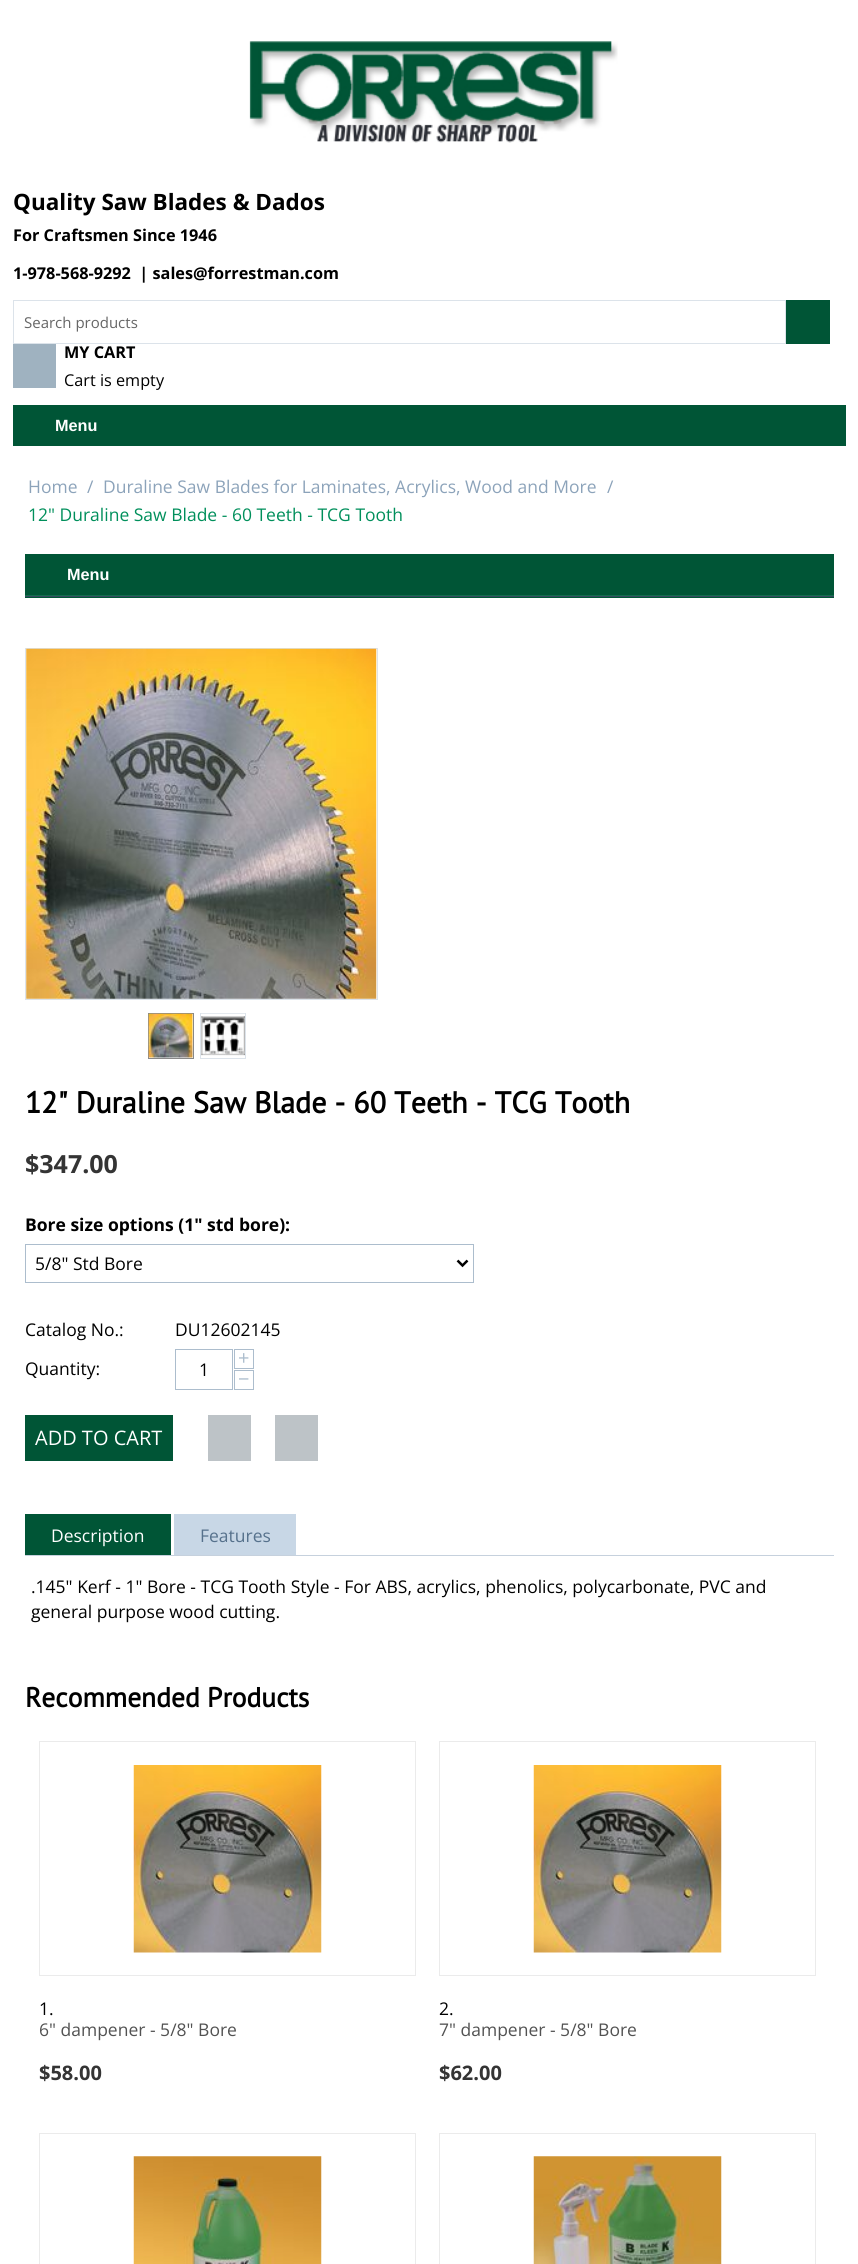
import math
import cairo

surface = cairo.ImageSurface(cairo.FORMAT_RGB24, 858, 2264)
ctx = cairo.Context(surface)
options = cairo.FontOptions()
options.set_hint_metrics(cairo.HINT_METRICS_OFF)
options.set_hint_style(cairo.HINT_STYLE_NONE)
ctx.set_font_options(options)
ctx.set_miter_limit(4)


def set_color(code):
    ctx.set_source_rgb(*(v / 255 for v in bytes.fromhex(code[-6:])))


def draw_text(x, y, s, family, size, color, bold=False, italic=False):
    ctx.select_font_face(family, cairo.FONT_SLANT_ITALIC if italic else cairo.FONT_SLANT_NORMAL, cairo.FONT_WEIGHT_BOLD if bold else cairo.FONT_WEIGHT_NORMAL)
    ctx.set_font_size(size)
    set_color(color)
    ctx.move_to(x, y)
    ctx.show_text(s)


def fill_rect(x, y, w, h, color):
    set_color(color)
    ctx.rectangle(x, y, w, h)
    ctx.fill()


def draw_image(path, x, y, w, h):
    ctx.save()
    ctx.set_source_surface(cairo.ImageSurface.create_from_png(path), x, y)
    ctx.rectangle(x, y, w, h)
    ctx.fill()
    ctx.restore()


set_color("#ffffff")
ctx.paint()
draw_image("assets/img1.png", 249, 41, 369, 102)
draw_text(13, 210, "Quality Saw Blades & Dados", "Open Sans", 22.5, "#000000", bold=True)
draw_text(13, 241, "For Craftsmen Since 1946", "Open Sans", 16.25, "#000000", bold=True)
draw_text(13, 279, "1-978-568-9292  | sales@forrestman.com", "Open Sans", 16.25, "#000000", bold=True)
ctx.rectangle(13.5, 300.5, 772, 43)
set_color("#dce3ea")
ctx.set_line_width(1)
ctx.stroke()
draw_text(24, 328, "Search products", "Open Sans", 15, "#666666")
fill_rect(786, 300, 44, 44, "#005536")
fill_rect(13, 344, 43, 44, "#9fb2c0")
draw_text(64, 358, "MY CART", "Open Sans", 16.25, "#000000", bold=True)
draw_text(64, 386, "Cart is empty", "Open Sans", 16.25, "#000000")
fill_rect(13, 405, 833, 41, "#005536")
draw_text(55, 431, "Menu", "Liberation Sans", 16.25, "#ffffff", bold=True)
draw_text(28, 493, "Home", "Open Sans", 17.5, "#8ca3ba")
draw_text(87, 493, "/", "Open Sans", 17.5, "#8ca3ba")
draw_text(103, 493, "Duraline Saw Blades for Laminates, Acrylics, Wood and More", "Open Sans", 17.5, "#8ca3ba")
draw_text(607, 493, "/", "Open Sans", 17.5, "#8ca3ba")
draw_text(28, 521, "12\" Duraline Saw Blade - 60 Teeth - TCG Tooth", "Open Sans", 17.5, "#008f5b")
fill_rect(25, 554, 809, 44, "#005536")
fill_rect(25, 596, 809, 1, "#34495e")
fill_rect(25, 595, 809, 1, "#126d4c")
draw_text(67, 580, "Menu", "Liberation Sans", 16.25, "#ffffff", bold=True)
ctx.rectangle(25.5, 648.5, 352, 351)
set_color("#dce3ea")
ctx.stroke()
draw_image("assets/img2.png", 26, 648, 351, 351)
ctx.rectangle(148.5, 1013.5, 45, 45)
set_color("#888888")
ctx.stroke()
draw_image("assets/img3.png", 148, 1013, 45, 45)
ctx.rectangle(200.5, 1013.5, 45, 45)
set_color("#dce3ea")
ctx.stroke()
draw_image("assets/img4.png", 201, 1013, 44, 43)
draw_text(25, 1113, "12\" Duraline Saw Blade - 60 Teeth - TCG Tooth", "PT Sans", 30, "#000000", bold=True)
draw_text(25, 1173, "$347.00", "Open Sans", 25, "#343434", bold=True)
draw_text(25, 1231, "Bore size options (1\" std bore):", "Open Sans", 17.5, "#000000", bold=True)
ctx.rectangle(25.5, 1244.5, 448, 38)
set_color("#acbdcd")
ctx.stroke()
ctx.new_path()
ctx.move_to(457.5, 1260.5)
ctx.line_to(462.5, 1265.5)
ctx.line_to(467.5, 1260.5)
set_color("#000000")
ctx.set_line_width(2.5)
ctx.stroke()
draw_text(35, 1270, "5/8\" Std Bore", "Open Sans", 17.5, "#000000")
draw_text(25, 1336, "Catalog No.:", "Open Sans", 17.5, "#000000")
draw_text(175, 1336, "DU12602145", "Open Sans", 17.5, "#000000")
draw_text(25, 1375, "Quantity:", "Open Sans", 17.5, "#000000")
ctx.rectangle(234.5, 1349.5, 19, 19)
set_color("#acbdcd")
ctx.set_line_width(1)
ctx.stroke()
draw_text(238, 1365, "+", "Open Sans", 20, "#acbdcd")
ctx.rectangle(175.5, 1349.5, 57, 40)
ctx.stroke()
draw_text(199, 1376, "1", "Open Sans", 17.5, "#000000")
ctx.rectangle(234.5, 1370.5, 19, 19)
set_color("#acbdcd")
ctx.stroke()
draw_text(238, 1386, "−", "Open Sans", 20, "#acbdcd")
fill_rect(25, 1415, 148, 46, "#005536")
draw_text(35, 1445, "ADD TO CART", "Open Sans", 20, "#ffffff")
fill_rect(208, 1415, 43, 46, "#bdc3c7")
fill_rect(275, 1415, 43, 46, "#bdc3c7")
fill_rect(25, 1555, 809, 1, "#c6d1dd")
fill_rect(25, 1514, 146, 41, "#005536")
draw_text(51, 1542, "Description", "Open Sans", 17.5, "#ffffff")
fill_rect(174, 1514, 122, 41, "#c8d7e6")
draw_text(200, 1542, "Features", "Open Sans", 17.5, "#56718c")
draw_text(31, 1593, ".145\" Kerf - 1\" Bore - TCG Tooth Style - For ABS, acrylics, phenolics, polycarbonate, PVC and", "Open Sans", 17.5, "#000000")
draw_text(31, 1618, "general purpose wood cutting.", "Open Sans", 17.5, "#000000")
draw_text(25, 1707, "Recommended Products", "PT Sans", 27.5, "#000000", bold=True)
ctx.rectangle(39.5, 1741.5, 376, 234)
set_color("#ebebeb")
ctx.stroke()
draw_image("assets/img5.png", 133, 1765, 189, 188)
draw_text(39, 2015, "1.", "Open Sans", 17.5, "#000000")
draw_text(39, 2036, "6\" dampener - 5/8\" Bore", "Open Sans", 17.5, "#525252")
draw_text(39, 2080, "$58.00", "Open Sans", 20, "#343434", bold=True)
ctx.rectangle(439.5, 1741.5, 376, 234)
set_color("#ebebeb")
ctx.stroke()
draw_image("assets/img6.png", 533, 1765, 189, 188)
draw_text(439, 2015, "2.", "Open Sans", 17.5, "#000000")
draw_text(439, 2036, "7\" dampener - 5/8\" Bore", "Open Sans", 17.5, "#525252")
draw_text(439, 2080, "$62.00", "Open Sans", 20, "#343434", bold=True)
ctx.rectangle(39.5, 2133.5, 376, 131)
set_color("#ebebeb")
ctx.stroke()
draw_image("assets/img7.png", 133, 2156, 189, 108)
ctx.rectangle(439.5, 2133.5, 376, 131)
ctx.stroke()
draw_image("assets/img8.png", 533, 2156, 189, 108)
surface.write_to_png("output.png")
